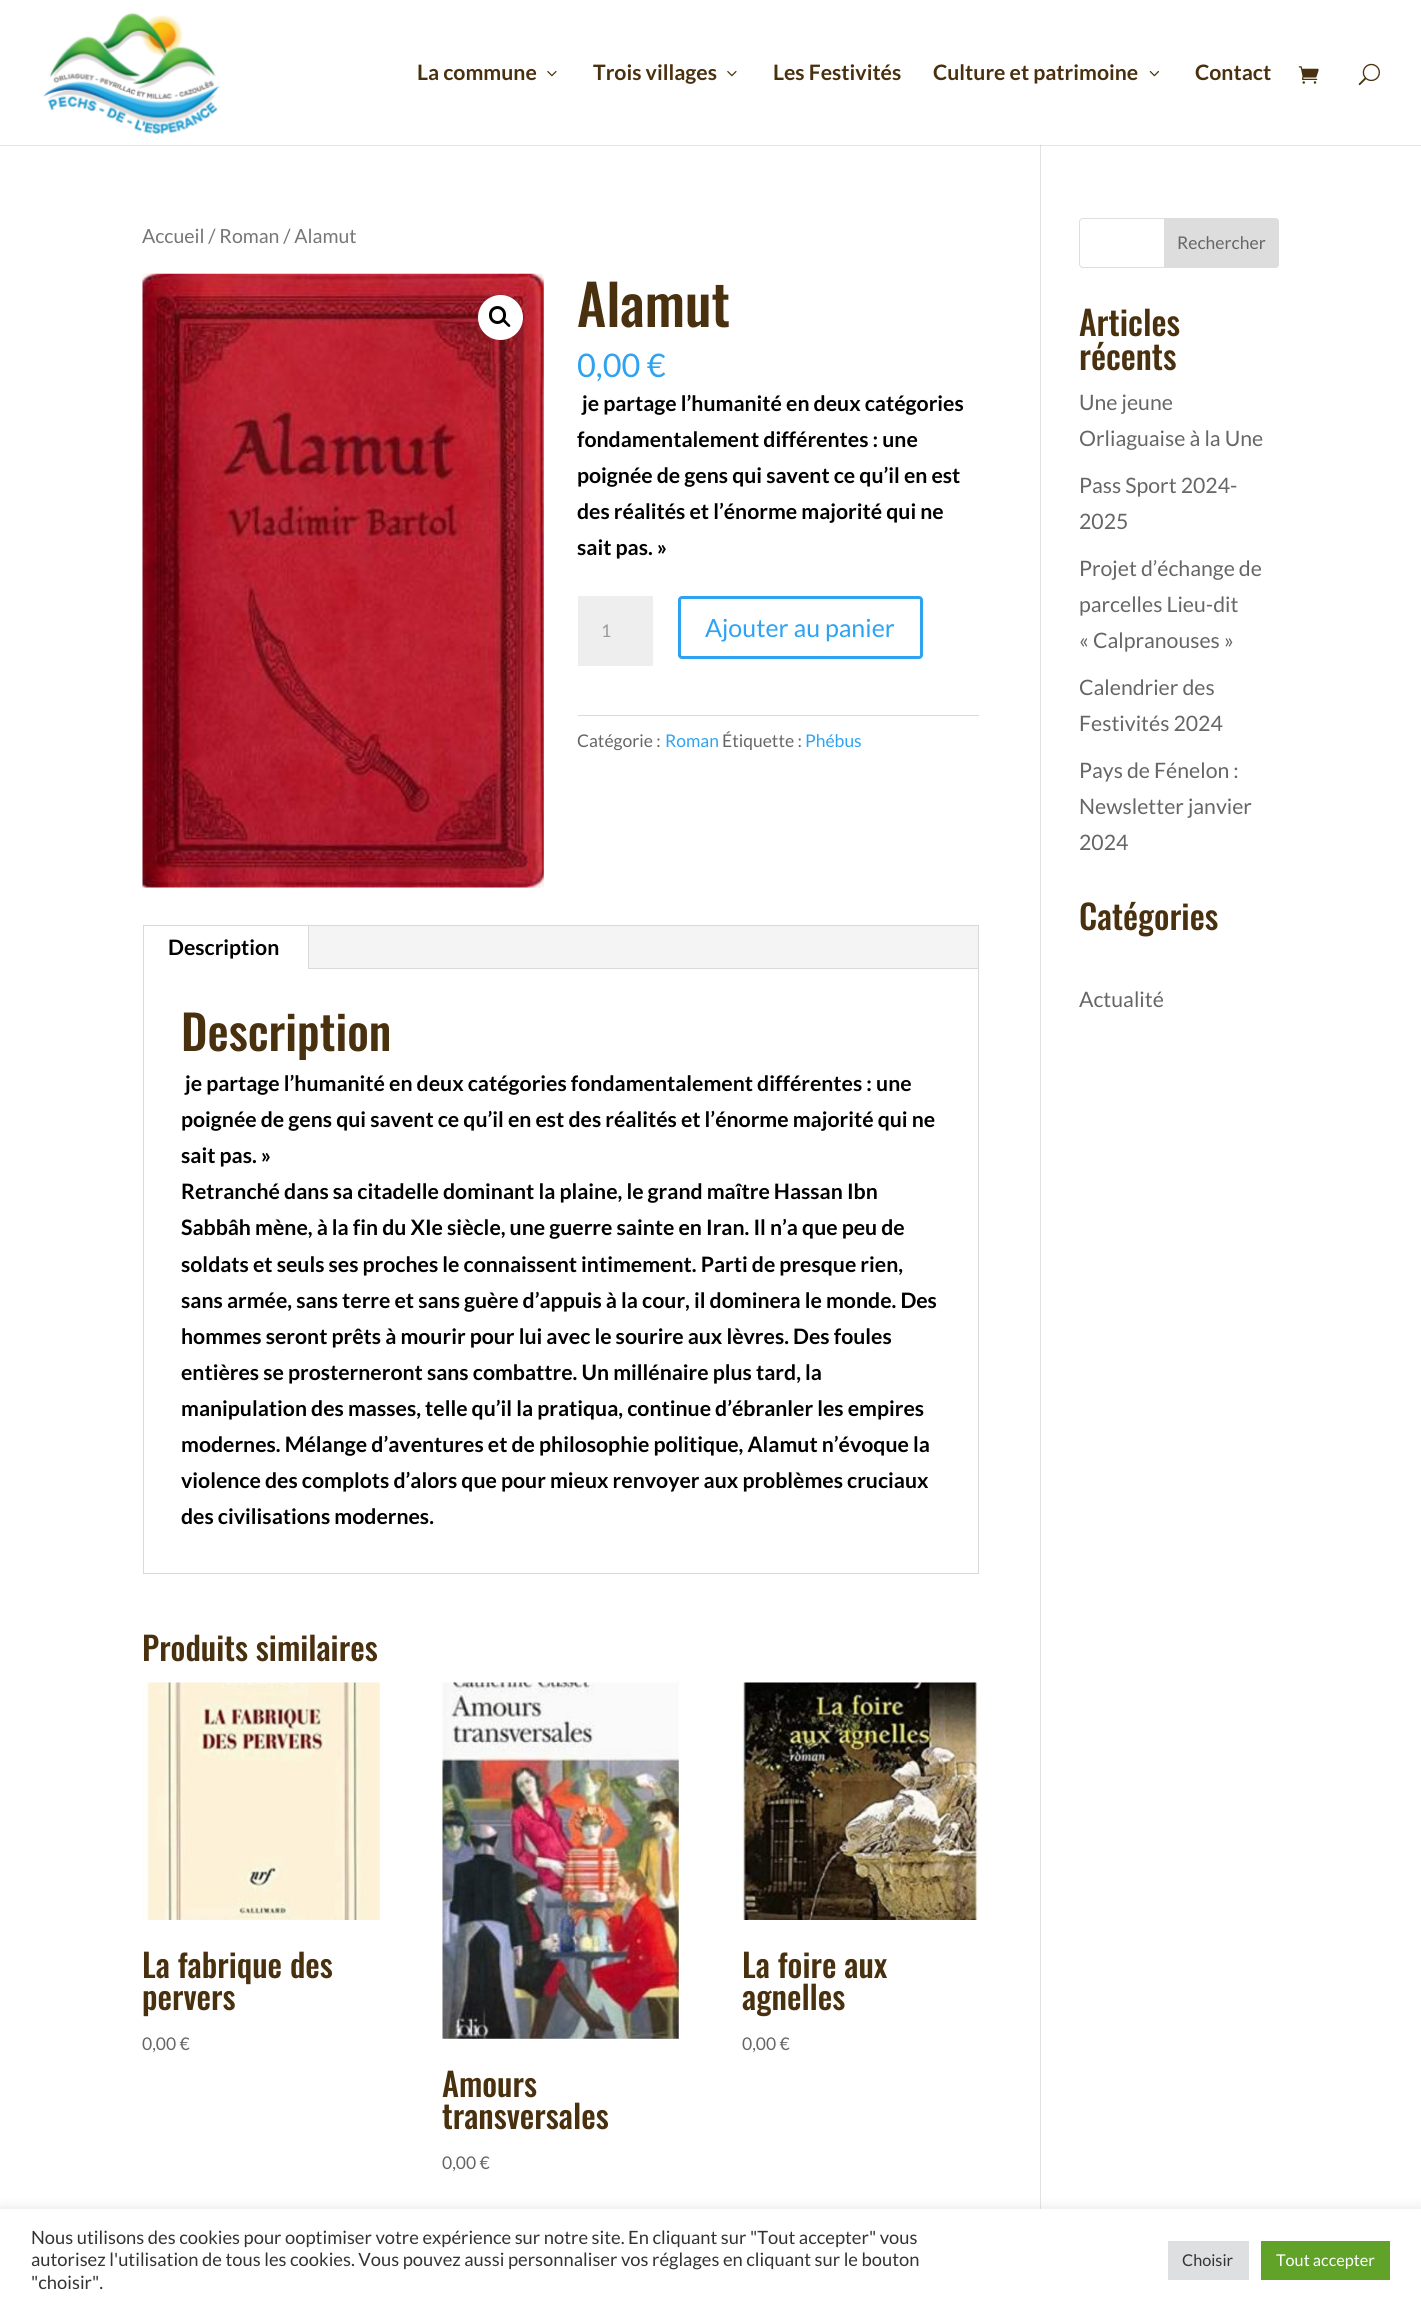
import math
import cairo

surface = cairo.ImageSurface(cairo.FORMAT_RGB24, 1421, 2311)
ctx = cairo.Context(surface)
options = cairo.FontOptions()
options.set_hint_metrics(cairo.HINT_METRICS_OFF)
options.set_hint_style(cairo.HINT_STYLE_NONE)
ctx.set_font_options(options)
ctx.set_miter_limit(4)


def set_color(code):
    ctx.set_source_rgb(*(v / 255 for v in bytes.fromhex(code[-6:])))


def draw_text(x, y, s, family, size, color, bold=False, italic=False):
    ctx.select_font_face(family, cairo.FONT_SLANT_ITALIC if italic else cairo.FONT_SLANT_NORMAL, cairo.FONT_WEIGHT_BOLD if bold else cairo.FONT_WEIGHT_NORMAL)
    ctx.set_font_size(size)
    set_color(color)
    ctx.move_to(x, y)
    ctx.show_text(s)


def fill_rect(x, y, w, h, color):
    set_color(color)
    ctx.rectangle(x, y, w, h)
    ctx.fill()


def rounded_rect(x, y, w, h, r):
    ctx.new_sub_path()
    for i, (u, v) in enumerate([(x + w - r, y + h - r), (x + r, y + h - r), (x + r, y + r), (x + w - r, y + r)]):
        ctx.arc(u, v, r, i * math.pi / 2, (i + 1) * math.pi / 2)
    ctx.close_path()


def draw_shadow(x, y, w, h, r, blur, alpha):
    ctx.push_group_with_content(cairo.CONTENT_ALPHA)
    ctx.set_operator(cairo.OPERATOR_SOURCE)
    for i in range(15, -16, -2):
        e = blur * i / 6
        if min(w, h) + 2 * e > 0:
            ctx.set_source_rgba(0, 0, 0, alpha * math.erfc((i - 1) / 8.5) / 2)
            rounded_rect(x - e, y - e, w + 2 * e, h + 2 * e, max(0, min(r + e + blur * .6, min(w, h) / 2 + e)))
            ctx.fill()
    ctx.mask(ctx.pop_group())


def draw_image(path, x, y, w, h):
    ctx.save()
    ctx.set_source_surface(cairo.ImageSurface.create_from_png(path), x, y)
    ctx.rectangle(x, y, w, h)
    ctx.fill()
    ctx.restore()


set_color("#ffffff")
ctx.paint()
fill_rect(0, 145, 1421, 1, "#e6e6e6")
draw_image("assets/img1.png", 43, 12, 177, 123)
draw_text(417, 80, "La commune", "Lato", 21.25, "#49300e", bold=True)
draw_image("assets/img2.png", 547, 71, 10, 6)
draw_text(593, 80, "Trois villages", "Lato", 21.25, "#49300e", bold=True)
draw_image("assets/img2.png", 727, 71, 10, 6)
draw_text(773, 80, "Les Festivités", "Lato", 21.25, "#49300e", bold=True)
draw_text(933, 80, "Culture et patrimoine", "Lato", 21.25, "#49300e", bold=True)
draw_image("assets/img3.png", 1149, 71, 10, 6)
draw_text(1195, 80, "Contact", "Lato", 21.25, "#49300e", bold=True)
draw_image("assets/img4.png", 1298, 66, 21, 18)
draw_image("assets/img5.png", 1358, 63, 22, 23)
fill_rect(1040, 145, 1, 2064, "#e2e2e2")
fill_rect(1040, 145, 1, 1, "#cbcbcb")
draw_text(142, 243, "Accueil / Roman / Alamut", "Lato", 19.5, "#767676")
draw_image("assets/img6.png", 142, 273, 402, 615)
set_color("#ffffff")
ctx.arc(500.5, 317.5, 22.5, 0, 2 * math.pi)
ctx.fill()
rounded_rect(490.5, 307.5, 14, 15, 7)
set_color("#000000")
ctx.set_line_width(3)
ctx.stroke()
ctx.new_path()
ctx.move_to(503, 319.5)
ctx.curve_to(504.5, 318, 506.5, 321.5, 507.5, 322.5)
ctx.curve_to(508, 323, 511.5, 325.5, 510, 326.5)
ctx.curve_to(508.5, 328, 506.5, 325, 505.5, 324)
ctx.curve_to(505, 323.5, 501.5, 321, 503, 319.5)
ctx.close_path()
ctx.fill()
draw_text(577, 327, "Alamut", "Oswald Medium", 56, "#49300e")
draw_text(577, 377, "0,00 €", "Lato", 32.5, "#2ea3f2")
draw_text(582, 411, "je partage l’humanité en deux catégories", "Lato", 21.25, "#000000", bold=True)
draw_text(577, 447, "fondamentalement différentes : une", "Lato", 21.25, "#000000", bold=True)
draw_text(577, 483, "poignée de gens qui savent ce qu’il en est", "Lato", 21.25, "#000000", bold=True)
draw_text(577, 519, "des réalités et l’énorme majorité qui ne", "Lato", 21.25, "#000000", bold=True)
draw_text(577, 555, "sait pas. »", "Lato", 21.25, "#000000", bold=True)
fill_rect(578, 596, 75, 70, "#eeeeee")
draw_text(601, 637, "1", "Lato", 17.5, "#999999")
rounded_rect(679.5, 597.5, 242, 60, 2.5)
set_color("#2ea3f2")
ctx.stroke()
draw_text(705, 637, "Ajouter au panier", "Lato", 25, "#2ea3f2")
fill_rect(578, 715, 401, 1, "#dadada")
draw_text(577, 747, "Catégorie :", "Lato", 17.5, "#666666")
draw_text(665, 747, "Roman", "Lato", 17.5, "#2ea3f2")
draw_text(722, 747, "Étiquette :", "Lato", 17.5, "#666666")
draw_text(805, 747, "Phébus", "Lato", 17.5, "#2ea3f2")
ctx.rectangle(143.5, 925.5, 835, 648)
set_color("#d9d9d9")
ctx.set_line_width(1)
ctx.stroke()
fill_rect(309, 926, 669, 42, "#f4f4f4")
fill_rect(308, 926, 1, 43, "#d9d9d9")
draw_text(168, 955, "Description", "Lato", 21.25, "#000000", bold=True)
fill_rect(309, 968, 669, 1, "#d9d9d9")
draw_text(181, 1051, "Description", "Oswald Medium", 47.5, "#49300e")
draw_text(185, 1091, "je partage l’humanité en deux catégories fondamentalement différentes : une", "Lato", 21.25, "#000000", bold=True)
draw_text(181, 1127, "poignée de gens qui savent ce qu’il en est des réalités et l’énorme majorité qui ne", "Lato", 21.25, "#000000", bold=True)
draw_text(181, 1163, "sait pas. »", "Lato", 21.25, "#000000", bold=True)
draw_text(181, 1199, "Retranché dans sa citadelle dominant la plaine, le grand maître Hassan Ibn", "Lato", 21.25, "#000000", bold=True)
draw_text(181, 1235, "Sabbâh mène, à la fin du XIe siècle, une guerre sainte en Iran. Il n’a que peu de", "Lato", 21.25, "#000000", bold=True)
draw_text(181, 1272, "soldats et seuls ses proches le connaissent intimement. Parti de presque rien,", "Lato", 21.25, "#000000", bold=True)
draw_text(181, 1308, "sans armée, sans terre et sans guère d’appuis à la cour, il dominera le monde. Des", "Lato", 21.25, "#000000", bold=True)
draw_text(181, 1344, "hommes seront prêts à mourir pour lui avec le sourire aux lèvres. Des foules", "Lato", 21.25, "#000000", bold=True)
draw_text(181, 1380, "entières se prosterneront sans combattre. Un millénaire plus tard, la", "Lato", 21.25, "#000000", bold=True)
draw_text(181, 1416, "manipulation des masses, telle qu’il la pratiqua, continue d’ébranler les empires", "Lato", 21.25, "#000000", bold=True)
draw_text(181, 1452, "modernes. Mélange d’aventures et de philosophie politique, Alamut n’évoque la", "Lato", 21.25, "#000000", bold=True)
draw_text(181, 1488, "violence des complots d’alors que pour mieux renvoyer aux problèmes cruciaux", "Lato", 21.25, "#000000", bold=True)
draw_text(181, 1524, "des civilisations modernes.", "Lato", 21.25, "#000000", bold=True)
draw_text(142, 1661, "Produits similaires", "Oswald Medium", 32.5, "#49300e")
draw_image("assets/img7.png", 143, 1682, 237, 238)
draw_text(142, 1978, "La fabrique des", "Oswald Medium", 32.5, "#49300e")
draw_text(142, 2010, "pervers", "Oswald Medium", 32.5, "#49300e")
draw_text(142, 2050, "0,00 €", "Lato", 17.5, "#666666")
draw_image("assets/img8.png", 741, 1682, 238, 238)
draw_text(742, 1978, "La foire aux", "Oswald Medium", 32.5, "#49300e")
draw_text(742, 2010, "agnelles", "Oswald Medium", 32.5, "#49300e")
draw_text(742, 2050, "0,00 €", "Lato", 17.5, "#666666")
draw_image("assets/img9.png", 442, 1682, 237, 357)
draw_text(442, 2097, "Amours", "Oswald Medium", 32.5, "#49300e")
draw_text(442, 2129, "transversales", "Oswald Medium", 32.5, "#49300e")
draw_text(442, 2169, "0,00 €", "Lato", 17.5, "#666666")
rounded_rect(1079.5, 218.5, 199, 49, 3.5)
set_color("#dddddd")
ctx.stroke()
ctx.new_path()
ctx.move_to(1164.5, 218.5)
ctx.line_to(1275, 218.5)
ctx.curve_to(1277, 218.5, 1278.5, 220, 1278.5, 222)
ctx.line_to(1278.5, 264)
ctx.curve_to(1278.5, 266, 1277, 267.5, 1275, 267.5)
ctx.line_to(1164.5, 267.5)
ctx.close_path()
ctx.fill_preserve()
ctx.stroke()
draw_text(1177, 249, "Rechercher", "Lato", 17.5, "#666666")
draw_text(1079, 336, "Articles", "Oswald Medium", 33.75, "#49300e")
draw_text(1079, 370, "récents", "Oswald Medium", 33.75, "#49300e")
draw_text(1079, 410, "Une jeune", "Lato", 21.25, "#666666")
draw_text(1079, 446, "Orliaguaise à la Une", "Lato", 21.25, "#666666")
draw_text(1079, 493, "Pass Sport 2024-", "Lato", 21.25, "#666666")
draw_text(1079, 529, "2025", "Lato", 21.25, "#666666")
draw_text(1079, 576, "Projet d’échange de", "Lato", 21.25, "#666666")
draw_text(1079, 612, "parcelles Lieu-dit", "Lato", 21.25, "#666666")
draw_text(1079, 648, "« Calpranouses »", "Lato", 21.25, "#666666")
draw_text(1079, 695, "Calendrier des", "Lato", 21.25, "#666666")
draw_text(1079, 731, "Festivités 2024", "Lato", 21.25, "#666666")
draw_text(1079, 778, "Pays de Fénelon :", "Lato", 21.25, "#666666")
draw_text(1079, 814, "Newsletter janvier", "Lato", 21.25, "#666666")
draw_text(1079, 850, "2024", "Lato", 21.25, "#666666")
draw_text(1079, 930, "Catégories", "Oswald Medium", 33.75, "#49300e")
draw_text(1079, 1007, "Actualité", "Lato", 21.25, "#666666")
set_color("#acabab")
draw_shadow(0, 2208, 1421, 102, 0, 6, 0.3)
fill_rect(0, 2209, 1421, 102, "#ffffff")
draw_text(31, 2244, "Nous utilisons des cookies pour ooptimiser votre expérience sur notre site. En cliquant sur \"Tout accepter\" vous", "Lato", 18.35, "#333333")
draw_text(31, 2266, "autorisez l'utilisation de tous les cookies. Vous pouvez aussi personnaliser vos réglages en cliquant sur le bouton", "Lato", 18.35, "#333333")
draw_text(31, 2289, "\"choisir\".", "Lato", 18.35, "#333333")
fill_rect(1168, 2241, 81, 39, "#dedfe0")
draw_text(1182, 2266, "Choisir", "Lato", 16.25, "#333333")
fill_rect(1261, 2241, 129, 39, "#61a229")
draw_text(1276, 2266, "Tout accepter", "Lato", 16.25, "#ffffff")
surface.write_to_png("output.png")
